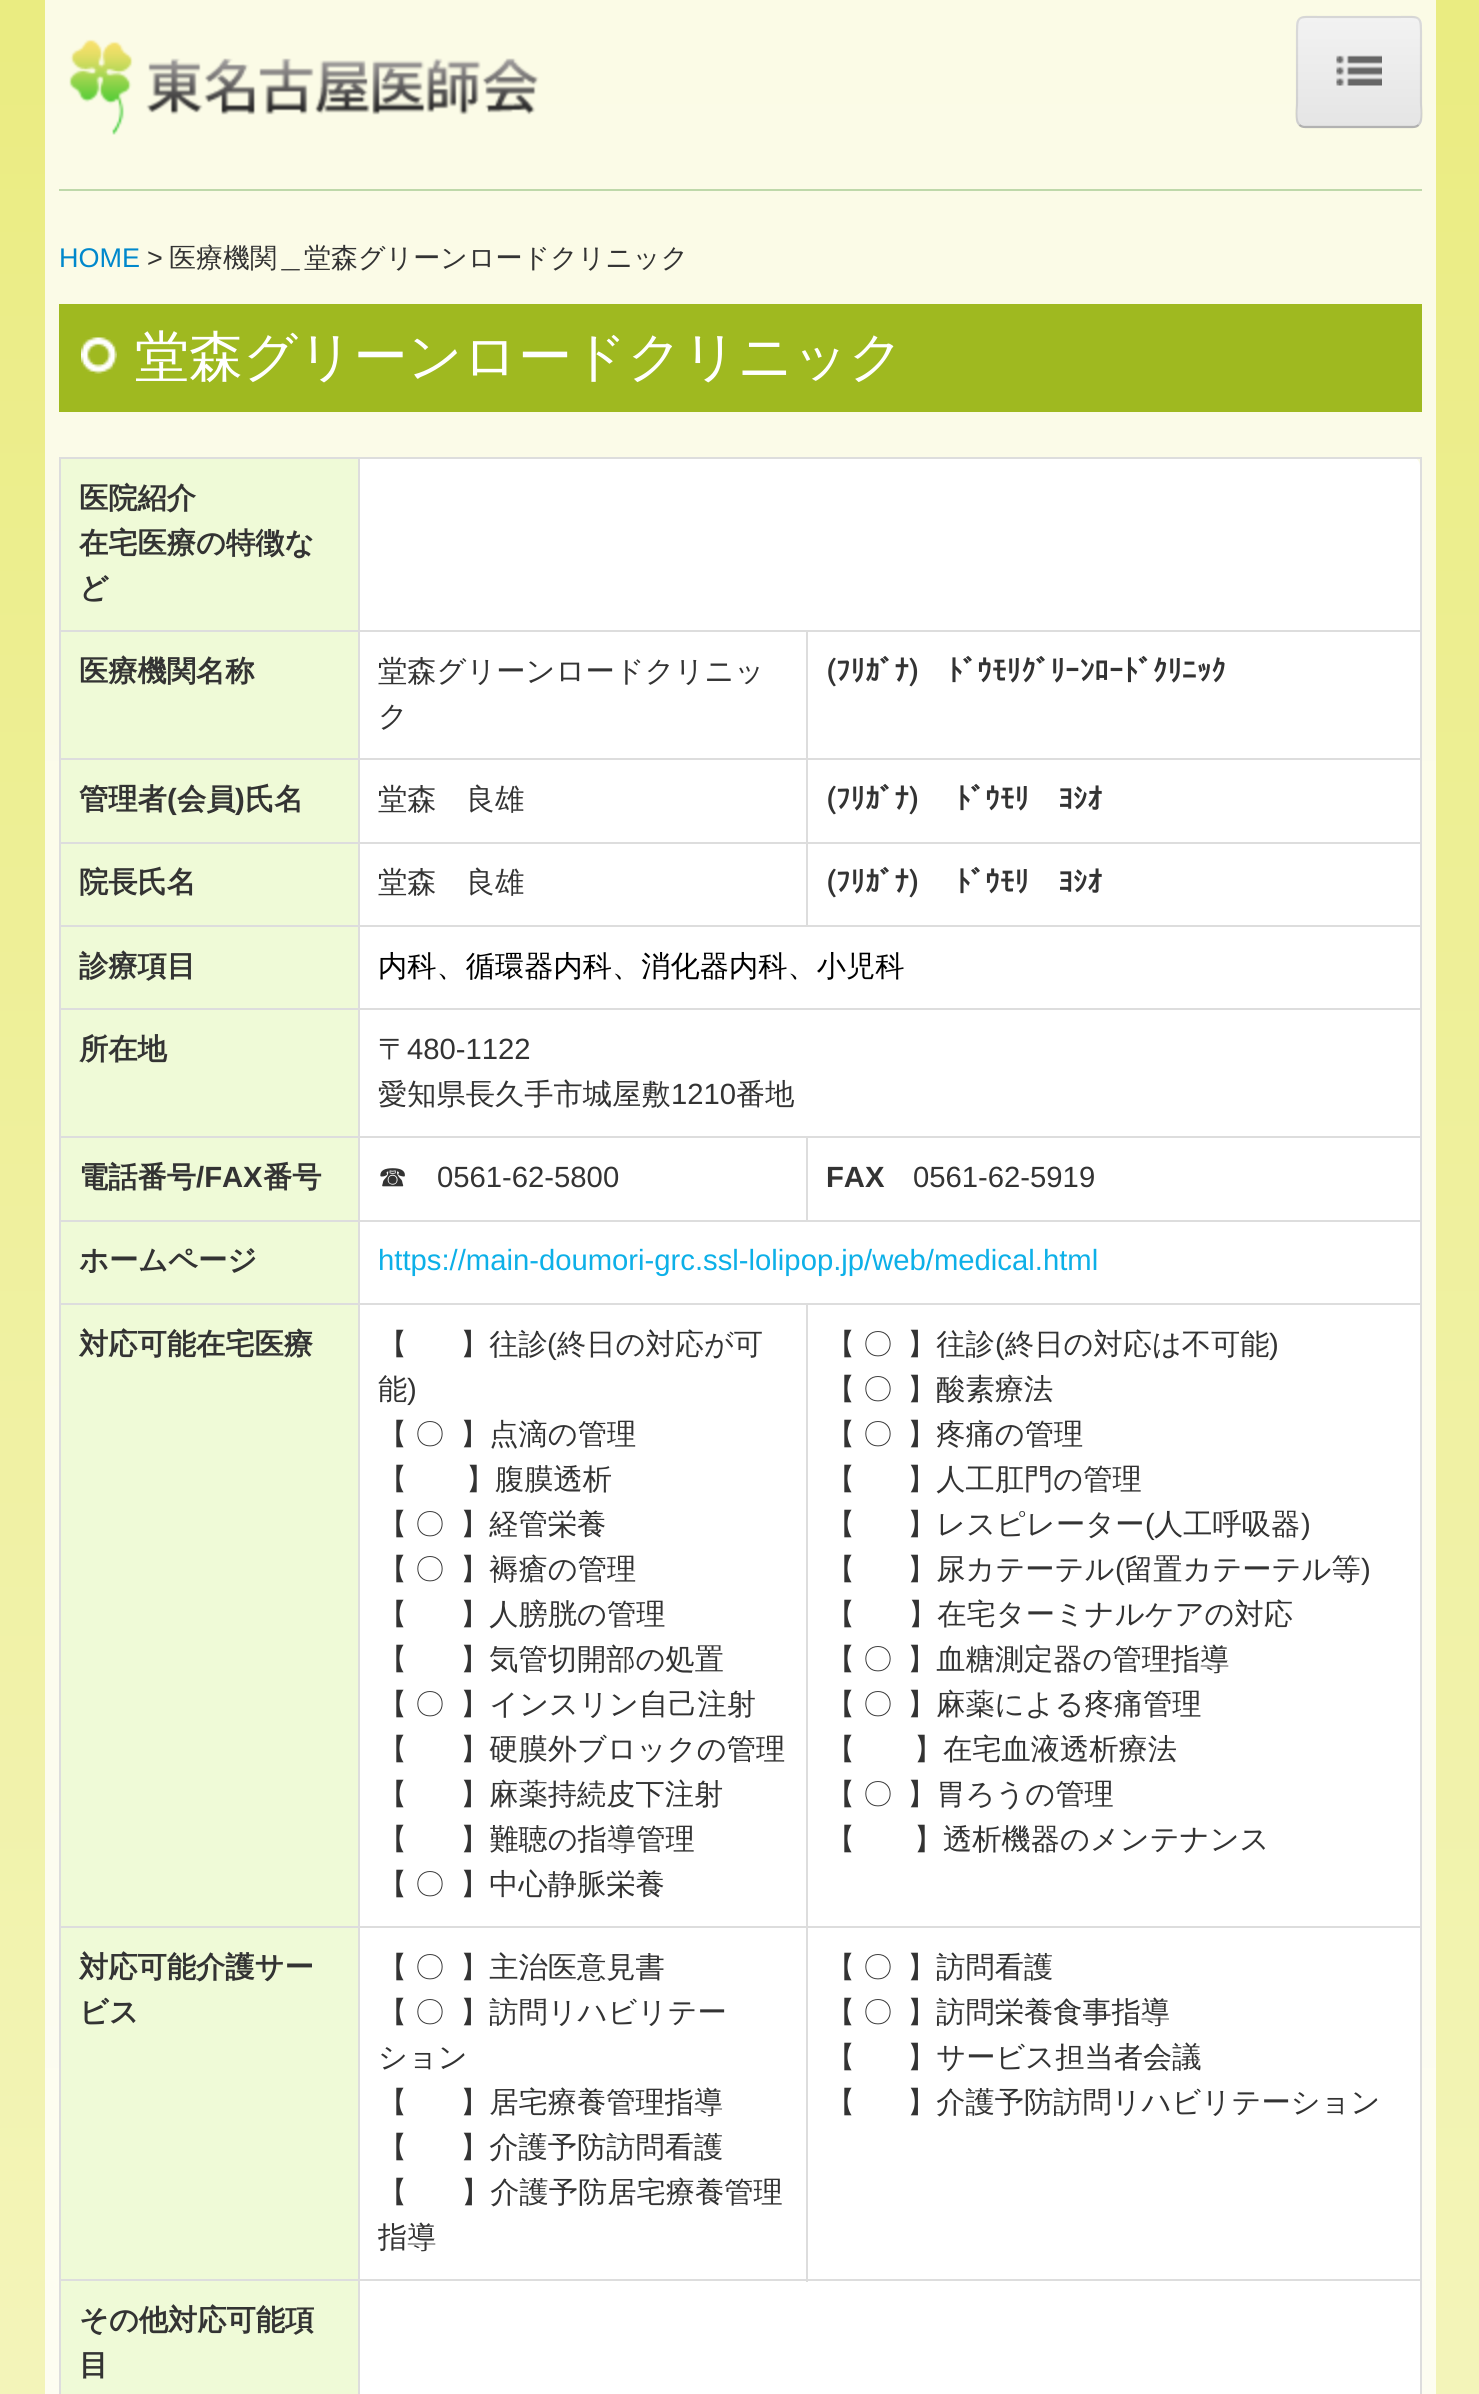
import math
import cairo

surface = cairo.ImageSurface(cairo.FORMAT_RGB24, 1479, 2394)
ctx = cairo.Context(surface)
options = cairo.FontOptions()
options.set_hint_metrics(cairo.HINT_METRICS_OFF)
options.set_hint_style(cairo.HINT_STYLE_NONE)
ctx.set_font_options(options)
ctx.set_miter_limit(4)


def set_color(code):
    ctx.set_source_rgb(*(v / 255 for v in bytes.fromhex(code[-6:])))


def draw_text(x, y, s, family, size, color, bold=False, italic=False):
    ctx.select_font_face(family, cairo.FONT_SLANT_ITALIC if italic else cairo.FONT_SLANT_NORMAL, cairo.FONT_WEIGHT_BOLD if bold else cairo.FONT_WEIGHT_NORMAL)
    ctx.set_font_size(size)
    set_color(color)
    ctx.move_to(x, y)
    ctx.show_text(s)


def draw_spaced(x, y, s, letter, word):
    ctx.move_to(x, y)
    for ch in s:
        ctx.show_text(ch)
        ctx.rel_move_to(letter + word * (ch == ' '), 0)


def fill_rect(x, y, w, h, color):
    set_color(color)
    ctx.rectangle(x, y, w, h)
    ctx.fill()


def rounded_rect(x, y, w, h, r):
    ctx.new_sub_path()
    for i, (u, v) in enumerate([(x + w - r, y + h - r), (x + r, y + h - r), (x + r, y + r), (x + w - r, y + r)]):
        ctx.arc(u, v, r, i * math.pi / 2, (i + 1) * math.pi / 2)
    ctx.close_path()


def draw_image(path, x, y, w, h):
    ctx.save()
    ctx.set_source_surface(cairo.ImageSurface.create_from_png(path), x, y)
    ctx.rectangle(x, y, w, h)
    ctx.fill()
    ctx.restore()


set_color("#ffffff")
ctx.paint()
gradient = cairo.LinearGradient(740, 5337, 740, 0)
gradient.add_color_stop_rgba(0, 1, 1, 1, 1)
gradient.add_color_stop_rgba(1, 0.918, 0.925, 0.506, 1)
gradient.add_color_stop_rgba(1, 1, 1, 1, 1)
ctx.set_source(gradient)
ctx.rectangle(0, 0, 1479, 2394)
ctx.fill()
gradient = cairo.LinearGradient(740, 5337, 740, 0)
gradient.add_color_stop_rgba(0, 1, 1, 1, 1)
gradient.add_color_stop_rgba(1, 0.984, 0.984, 0.902, 1)
gradient.add_color_stop_rgba(1, 1, 1, 1, 1)
ctx.set_source(gradient)
ctx.rectangle(45, 0, 1391, 2394)
ctx.fill()
fill_rect(59, 189, 1363, 2, "#bed8aa")
draw_image("assets/img1.png", 69, 39, 470, 96)
set_color("#ededed")
rounded_rect(1296, 16, 126, 112, 9)
ctx.fill()
ctx.save()
rounded_rect(1296, 16, 126, 112, 9)
ctx.clip()
gradient = cairo.LinearGradient(1359, 18, 1359, 126)
gradient.add_color_stop_rgba(0, 0.949, 0.949, 0.949, 1)
gradient.add_color_stop_rgba(1, 0.898, 0.898, 0.898, 1)
ctx.set_source(gradient)
ctx.rectangle(1296, 18, 126, 108)
ctx.fill()
ctx.restore()
ctx.new_path()
ctx.move_to(1418.5, 125)
ctx.curve_to(1417, 126.5, 1415, 127, 1413, 127)
ctx.line_to(1305, 127)
ctx.curve_to(1303, 127, 1301, 126.5, 1299.5, 125)
ctx.set_source_rgba(0, 0, 0, 0.25)
ctx.set_line_width(2.2)
ctx.stroke()
ctx.new_path()
ctx.move_to(1299.5, 125)
ctx.curve_to(1294.5, 120, 1297, 107, 1297, 103.5)
ctx.line_to(1297, 40.5)
ctx.curve_to(1297, 13.5, 1295.5, 17, 1323, 17)
ctx.line_to(1395, 17)
ctx.curve_to(1422.5, 17, 1421, 13.5, 1421, 40.5)
ctx.line_to(1421, 103.5)
ctx.curve_to(1421, 107, 1423.5, 120, 1418.5, 125)
ctx.set_source_rgba(0, 0, 0, 0.1)
ctx.stroke()
draw_image("assets/img2.png", 1336, 55, 46, 31)
draw_text(59, 267, "HOME", "Liberation Sans", 27, "#0088cc")
draw_text(147, 267, ">", "Liberation Sans", 27, "#333333")
draw_text(169, 267, "医療機関＿堂森グリーンロードクリニック", "WenQuanYi Zen Hei Medium", 27, "#333333")
fill_rect(59, 304, 1363, 108, "#9fb920")
draw_image("assets/img3.png", 81, 337, 36, 37)
draw_text(135, 375, "堂森グリーンロードクリニック", "WenQuanYi Zen Hei Medium", 54, "#ffffff")
fill_rect(61, 459, 297, 171, "#effad7")
set_color("#ffffff")
ctx.new_path()
ctx.move_to(360, 457)
ctx.line_to(1411, 457)
ctx.curve_to(1416, 457, 1420, 461, 1420, 466)
ctx.line_to(1420, 630)
ctx.line_to(360, 630)
ctx.close_path()
ctx.fill()
fill_rect(358, 457, 1064, 2, "#dddddd")
fill_rect(806, 630, 616, 2, "#dddddd")
fill_rect(806, 758, 616, 2, "#dddddd")
fill_rect(806, 842, 616, 2, "#dddddd")
fill_rect(358, 925, 1064, 2, "#dddddd")
fill_rect(806, 842, 2, 85, "#dddddd")
fill_rect(358, 842, 450, 2, "#dddddd")
fill_rect(806, 758, 2, 86, "#dddddd")
fill_rect(358, 758, 450, 2, "#dddddd")
fill_rect(806, 630, 2, 131, "#dddddd")
fill_rect(358, 630, 450, 2, "#dddddd")
fill_rect(358, 1008, 1064, 2, "#dddddd")
fill_rect(806, 1136, 616, 2, "#dddddd")
fill_rect(358, 1220, 1064, 2, "#dddddd")
fill_rect(806, 1136, 2, 86, "#dddddd")
fill_rect(358, 1136, 450, 2, "#dddddd")
fill_rect(806, 1303, 616, 2, "#dddddd")
fill_rect(806, 1926, 616, 2, "#dddddd")
fill_rect(360, 2281, 1060, 113, "#ffffff")
fill_rect(358, 2279, 1064, 2, "#dddddd")
fill_rect(806, 1926, 2, 356, "#dddddd")
fill_rect(358, 1926, 450, 2, "#dddddd")
fill_rect(806, 1303, 2, 625, "#dddddd")
fill_rect(358, 1303, 450, 2, "#dddddd")
fill_rect(358, 2279, 2, 115, "#dddddd")
fill_rect(59, 2279, 301, 2, "#dddddd")
fill_rect(358, 1926, 2, 356, "#dddddd")
fill_rect(59, 1926, 301, 2, "#dddddd")
fill_rect(358, 1303, 2, 625, "#dddddd")
fill_rect(59, 1303, 301, 2, "#dddddd")
fill_rect(358, 1220, 2, 85, "#dddddd")
fill_rect(59, 1220, 301, 2, "#dddddd")
fill_rect(358, 1136, 2, 86, "#dddddd")
fill_rect(59, 1136, 301, 2, "#dddddd")
fill_rect(358, 1008, 2, 131, "#dddddd")
fill_rect(59, 1008, 301, 2, "#dddddd")
fill_rect(358, 925, 2, 85, "#dddddd")
fill_rect(59, 925, 301, 2, "#dddddd")
fill_rect(358, 842, 2, 85, "#dddddd")
fill_rect(59, 842, 301, 2, "#dddddd")
fill_rect(358, 758, 2, 86, "#dddddd")
fill_rect(59, 758, 301, 2, "#dddddd")
fill_rect(358, 630, 2, 131, "#dddddd")
fill_rect(59, 630, 301, 2, "#dddddd")
fill_rect(358, 457, 2, 175, "#dddddd")
fill_rect(59, 457, 301, 2, "#dddddd")
fill_rect(59, 2279, 2, 115, "#dddddd")
fill_rect(59, 1926, 2, 356, "#dddddd")
fill_rect(59, 1303, 2, 625, "#dddddd")
fill_rect(59, 1220, 2, 85, "#dddddd")
fill_rect(59, 1136, 2, 86, "#dddddd")
fill_rect(59, 1008, 2, 131, "#dddddd")
fill_rect(59, 925, 2, 85, "#dddddd")
fill_rect(59, 842, 2, 85, "#dddddd")
fill_rect(59, 758, 2, 86, "#dddddd")
fill_rect(59, 630, 2, 131, "#dddddd")
fill_rect(59, 457, 2, 175, "#dddddd")
draw_text(79, 508, "医院紹介", "WenQuanYi Zen Hei", 29.25, "#333333", bold=True)
draw_text(79, 553, "在宅医療の特徴な", "WenQuanYi Zen Hei", 29.25, "#333333", bold=True)
draw_text(79, 598, "ど", "WenQuanYi Zen Hei", 29.25, "#333333", bold=True)
fill_rect(1420, 2279, 2, 115, "#dddddd")
fill_rect(1420, 1926, 2, 356, "#dddddd")
fill_rect(1420, 1303, 2, 625, "#dddddd")
fill_rect(1420, 1220, 2, 85, "#dddddd")
fill_rect(1420, 1136, 2, 86, "#dddddd")
fill_rect(1420, 1008, 2, 131, "#dddddd")
fill_rect(1420, 925, 2, 85, "#dddddd")
fill_rect(1420, 842, 2, 85, "#dddddd")
fill_rect(1420, 758, 2, 86, "#dddddd")
fill_rect(1420, 630, 2, 131, "#dddddd")
fill_rect(1420, 457, 2, 175, "#dddddd")
fill_rect(61, 632, 297, 126, "#effad7")
draw_text(79, 681, "医療機関名称", "WenQuanYi Zen Hei", 29.25, "#333333", bold=True)
fill_rect(360, 632, 446, 126, "#ffffff")
draw_text(378, 681, "堂森グリーンロードクリニッ", "WenQuanYi Zen Hei Medium", 29.25, "#333333")
draw_text(378, 726, "ク", "WenQuanYi Zen Hei Medium", 29.25, "#333333")
fill_rect(808, 632, 612, 126, "#ffffff")
draw_text(826, 681, "(ﾌﾘｶﾞﾅ)　ﾄﾞｳﾓﾘｸﾞﾘｰﾝﾛｰﾄﾞｸﾘﾆｯｸ", "IPAPGothic", 29.25, "#333333", bold=True)
fill_rect(61, 760, 297, 82, "#effad7")
draw_text(79, 809, "管理者", "WenQuanYi Zen Hei", 29.25, "#333333", bold=True)
draw_text(167, 809, "(", "Liberation Sans", 29.25, "#333333", bold=True)
draw_text(177, 809, "会員", "WenQuanYi Zen Hei", 29.25, "#333333", bold=True)
draw_text(235, 809, ")", "Liberation Sans", 29.25, "#333333", bold=True)
draw_text(245, 809, "氏名", "WenQuanYi Zen Hei", 29.25, "#333333", bold=True)
fill_rect(360, 760, 446, 82, "#ffffff")
draw_text(378, 809, "堂森　良雄", "WenQuanYi Zen Hei Medium", 29.25, "#333333")
fill_rect(808, 760, 612, 82, "#ffffff")
draw_text(826, 809, "(ﾌﾘｶﾞﾅ) 　ﾄﾞｳﾓﾘ　ﾖｼｵ", "IPAPGothic", 29.25, "#333333", bold=True)
fill_rect(61, 844, 297, 81, "#effad7")
draw_text(79, 892, "院長氏名", "WenQuanYi Zen Hei", 29.25, "#333333", bold=True)
fill_rect(360, 844, 446, 81, "#ffffff")
draw_text(378, 892, "堂森　良雄", "WenQuanYi Zen Hei Medium", 29.25, "#333333")
fill_rect(808, 844, 612, 81, "#ffffff")
draw_text(826, 892, "(ﾌﾘｶﾞﾅ) 　ﾄﾞｳﾓﾘ　ﾖｼｵ", "IPAPGothic", 29.25, "#333333", bold=True)
fill_rect(61, 927, 297, 81, "#effad7")
draw_text(79, 976, "診療項目", "WenQuanYi Zen Hei", 29.25, "#333333", bold=True)
fill_rect(360, 927, 1060, 81, "#ffffff")
draw_text(378, 976, "内科、循環器内科、消化器内科、小児科", "WenQuanYi Zen Hei Medium", 29.25, "#000000")
fill_rect(61, 1010, 297, 126, "#effad7")
draw_text(79, 1059, "所在地", "WenQuanYi Zen Hei", 29.25, "#333333", bold=True)
fill_rect(360, 1010, 1060, 126, "#ffffff")
draw_text(378, 1059, "〒", "WenQuanYi Zen Hei Medium", 29.25, "#333333")
draw_text(407, 1059, "480-1122", "Liberation Sans", 29.25, "#333333")
draw_text(378, 1104, "愛知県長久手市城屋敷", "WenQuanYi Zen Hei Medium", 29.25, "#333333")
draw_text(671, 1104, "1210", "Liberation Sans", 29.25, "#333333")
draw_text(736, 1104, "番地", "WenQuanYi Zen Hei Medium", 29.25, "#333333")
fill_rect(61, 1138, 297, 82, "#effad7")
draw_text(79, 1187, "電話番号", "WenQuanYi Zen Hei", 29.25, "#333333", bold=True)
draw_text(196, 1187, "/FAX", "Liberation Sans", 29.25, "#333333", bold=True)
draw_text(263, 1187, "番号", "WenQuanYi Zen Hei", 29.25, "#333333", bold=True)
fill_rect(360, 1138, 446, 82, "#ffffff")
draw_text(378, 1187, "☎", "WenQuanYi Zen Hei Medium", 29.25, "#333333")
draw_text(437, 1187, "0561-62-5800", "Liberation Sans", 29.25, "#333333")
fill_rect(808, 1138, 612, 82, "#ffffff")
draw_text(826, 1187, "FAX", "Liberation Sans", 29.25, "#333333", bold=True)
draw_text(913, 1187, "0561-62-5919", "Liberation Sans", 29.25, "#333333")
fill_rect(61, 1222, 297, 81, "#effad7")
draw_text(79, 1270, "ホームページ", "WenQuanYi Zen Hei", 29.25, "#333333", bold=True)
fill_rect(360, 1222, 1060, 81, "#ffffff")
draw_text(378, 1270, "https://main-doumori-grc.ssl-lolipop.jp/web/medical.html", "Liberation Sans", 29.25, "#0db0e8")
fill_rect(61, 1305, 297, 621, "#effad7")
draw_text(79, 1354, "対応可能在宅医療", "WenQuanYi Zen Hei", 29.25, "#333333", bold=True)
fill_rect(360, 1305, 446, 621, "#ffffff")
draw_text(378, 1354, "【", "WenQuanYi Zen Hei Medium", 29.25, "#333333")
draw_text(460, 1354, "】往診", "WenQuanYi Zen Hei Medium", 29.25, "#333333")
draw_text(547, 1354, "(", "Liberation Sans", 29.25, "#333333")
draw_text(557, 1354, "終日の対応が可", "WenQuanYi Zen Hei Medium", 29.25, "#333333")
draw_text(378, 1399, "能", "WenQuanYi Zen Hei Medium", 29.25, "#333333")
draw_text(407, 1399, ")", "Liberation Sans", 29.25, "#333333")
ctx.select_font_face("WenQuanYi Zen Hei Medium")
draw_spaced(378, 1444, "【 〇", 0, -1)
draw_text(460, 1444, "】点滴の管理", "WenQuanYi Zen Hei Medium", 29.25, "#333333")
draw_text(378, 1489, "【　　】腹膜透析", "WenQuanYi Zen Hei Medium", 29.25, "#333333")
draw_spaced(378, 1534, "【 〇", 0, -1)
draw_text(460, 1534, "】経管栄養", "WenQuanYi Zen Hei Medium", 29.25, "#333333")
draw_spaced(378, 1579, "【 〇", 0, -1)
draw_text(460, 1579, "】褥瘡の管理", "WenQuanYi Zen Hei Medium", 29.25, "#333333")
draw_text(378, 1624, "【", "WenQuanYi Zen Hei Medium", 29.25, "#333333")
draw_text(460, 1624, "】人膀胱の管理", "WenQuanYi Zen Hei Medium", 29.25, "#333333")
draw_text(378, 1669, "【", "WenQuanYi Zen Hei Medium", 29.25, "#333333")
draw_text(460, 1669, "】気管切開部の処置", "WenQuanYi Zen Hei Medium", 29.25, "#333333")
draw_spaced(378, 1714, "【 〇", 0, -1)
draw_text(460, 1714, "】インスリン自己注射", "WenQuanYi Zen Hei Medium", 29.25, "#333333")
draw_text(378, 1759, "【", "WenQuanYi Zen Hei Medium", 29.25, "#333333")
draw_text(460, 1759, "】硬膜外ブロックの管理", "WenQuanYi Zen Hei Medium", 29.25, "#333333")
draw_text(378, 1804, "【", "WenQuanYi Zen Hei Medium", 29.25, "#333333")
draw_text(460, 1804, "】麻薬持続皮下注射", "WenQuanYi Zen Hei Medium", 29.25, "#333333")
draw_text(378, 1849, "【", "WenQuanYi Zen Hei Medium", 29.25, "#333333")
draw_text(460, 1849, "】難聴の指導管理", "WenQuanYi Zen Hei Medium", 29.25, "#333333")
draw_spaced(378, 1894, "【 〇", 0, -1)
draw_text(460, 1894, "】中心静脈栄養", "WenQuanYi Zen Hei Medium", 29.25, "#333333")
fill_rect(808, 1305, 612, 621, "#ffffff")
set_color("#333333")
draw_spaced(826, 1354, "【 〇", 0, -1)
draw_text(907, 1354, "】往診", "WenQuanYi Zen Hei Medium", 29.25, "#333333")
draw_text(995, 1354, "(", "Liberation Sans", 29.25, "#333333")
draw_text(1005, 1354, "終日の対応は不可能", "WenQuanYi Zen Hei Medium", 29.25, "#333333")
draw_text(1269, 1354, ")", "Liberation Sans", 29.25, "#333333")
ctx.select_font_face("WenQuanYi Zen Hei Medium")
draw_spaced(826, 1399, "【 〇", 0, -1)
draw_text(907, 1399, "】酸素療法", "WenQuanYi Zen Hei Medium", 29.25, "#333333")
draw_spaced(826, 1444, "【 〇", 0, -1)
draw_text(907, 1444, "】疼痛の管理", "WenQuanYi Zen Hei Medium", 29.25, "#333333")
draw_text(826, 1489, "【", "WenQuanYi Zen Hei Medium", 29.25, "#333333")
draw_text(907, 1489, "】人工肛門の管理", "WenQuanYi Zen Hei Medium", 29.25, "#333333")
draw_text(826, 1534, "【", "WenQuanYi Zen Hei Medium", 29.25, "#333333")
draw_text(907, 1534, "】レスピレーター", "WenQuanYi Zen Hei Medium", 29.25, "#333333")
draw_text(1145, 1534, "(", "Liberation Sans", 29.25, "#333333")
draw_text(1154, 1534, "人工呼吸器", "WenQuanYi Zen Hei Medium", 29.25, "#333333")
draw_text(1301, 1534, ")", "Liberation Sans", 29.25, "#333333")
draw_text(826, 1579, "【", "WenQuanYi Zen Hei Medium", 29.25, "#333333")
draw_text(907, 1579, "】尿カテーテル", "WenQuanYi Zen Hei Medium", 29.25, "#333333")
draw_text(1115, 1579, "(", "Liberation Sans", 29.25, "#333333")
draw_text(1124, 1579, "留置カテーテル等", "WenQuanYi Zen Hei Medium", 29.25, "#333333")
draw_text(1361, 1579, ")", "Liberation Sans", 29.25, "#333333")
draw_text(826, 1624, "【", "WenQuanYi Zen Hei Medium", 29.25, "#333333")
draw_text(908, 1624, "】在宅ターミナルケアの対応", "WenQuanYi Zen Hei Medium", 29.25, "#333333")
draw_spaced(826, 1669, "【 〇", 0, -1)
draw_text(907, 1669, "】血糖測定器の管理指導", "WenQuanYi Zen Hei Medium", 29.25, "#333333")
draw_spaced(826, 1714, "【 〇", 0, -1)
draw_text(907, 1714, "】麻薬による疼痛管理", "WenQuanYi Zen Hei Medium", 29.25, "#333333")
draw_text(826, 1759, "【　　】在宅血液透析療法", "WenQuanYi Zen Hei Medium", 29.25, "#333333")
draw_spaced(826, 1804, "【 〇", 0, -1)
draw_text(907, 1804, "】胃ろうの管理", "WenQuanYi Zen Hei Medium", 29.25, "#333333")
draw_text(826, 1849, "【　　】透析機器のメンテナンス", "WenQuanYi Zen Hei Medium", 29.25, "#333333")
fill_rect(61, 1928, 297, 351, "#effad7")
draw_text(79, 1977, "対応可能介護サー", "WenQuanYi Zen Hei", 29.25, "#333333", bold=True)
draw_text(79, 2022, "ビス", "WenQuanYi Zen Hei", 29.25, "#333333", bold=True)
fill_rect(360, 1928, 446, 351, "#ffffff")
ctx.select_font_face("WenQuanYi Zen Hei Medium")
set_color("#333333")
draw_spaced(378, 1977, "【 〇", 0, -1)
draw_text(460, 1977, "】主治医意見書", "WenQuanYi Zen Hei Medium", 29.25, "#333333")
draw_spaced(378, 2022, "【 〇", 0, -1)
draw_text(460, 2022, "】訪問リハビリテー", "WenQuanYi Zen Hei Medium", 29.25, "#333333")
draw_text(378, 2067, "ション", "WenQuanYi Zen Hei Medium", 29.25, "#333333")
draw_text(378, 2112, "【", "WenQuanYi Zen Hei Medium", 29.25, "#333333")
draw_text(460, 2112, "】居宅療養管理指導", "WenQuanYi Zen Hei Medium", 29.25, "#333333")
draw_text(378, 2157, "【", "WenQuanYi Zen Hei Medium", 29.25, "#333333")
draw_text(460, 2157, "】介護予防訪問看護", "WenQuanYi Zen Hei Medium", 29.25, "#333333")
draw_text(378, 2202, "【", "WenQuanYi Zen Hei Medium", 29.25, "#333333")
draw_text(461, 2202, "】介護予防居宅療養管理", "WenQuanYi Zen Hei Medium", 29.25, "#333333")
draw_text(378, 2247, "指導", "WenQuanYi Zen Hei Medium", 29.25, "#333333")
fill_rect(808, 1928, 612, 351, "#ffffff")
set_color("#333333")
draw_spaced(826, 1977, "【 〇", 0, -1)
draw_text(907, 1977, "】訪問看護", "WenQuanYi Zen Hei Medium", 29.25, "#333333")
draw_spaced(826, 2022, "【 〇", 0, -1)
draw_text(907, 2022, "】訪問栄養食事指導", "WenQuanYi Zen Hei Medium", 29.25, "#333333")
draw_text(826, 2067, "【", "WenQuanYi Zen Hei Medium", 29.25, "#333333")
draw_text(907, 2067, "】サービス担当者会議", "WenQuanYi Zen Hei Medium", 29.25, "#333333")
draw_text(826, 2112, "【", "WenQuanYi Zen Hei Medium", 29.25, "#333333")
draw_text(907, 2112, "】介護予防訪問リハビリテーション", "WenQuanYi Zen Hei Medium", 29.25, "#333333")
fill_rect(61, 2281, 297, 113, "#effad7")
draw_text(79, 2330, "その他対応可能項", "WenQuanYi Zen Hei", 29.25, "#333333", bold=True)
draw_text(79, 2375, "目", "WenQuanYi Zen Hei", 29.25, "#333333", bold=True)
surface.write_to_png("output.png")
